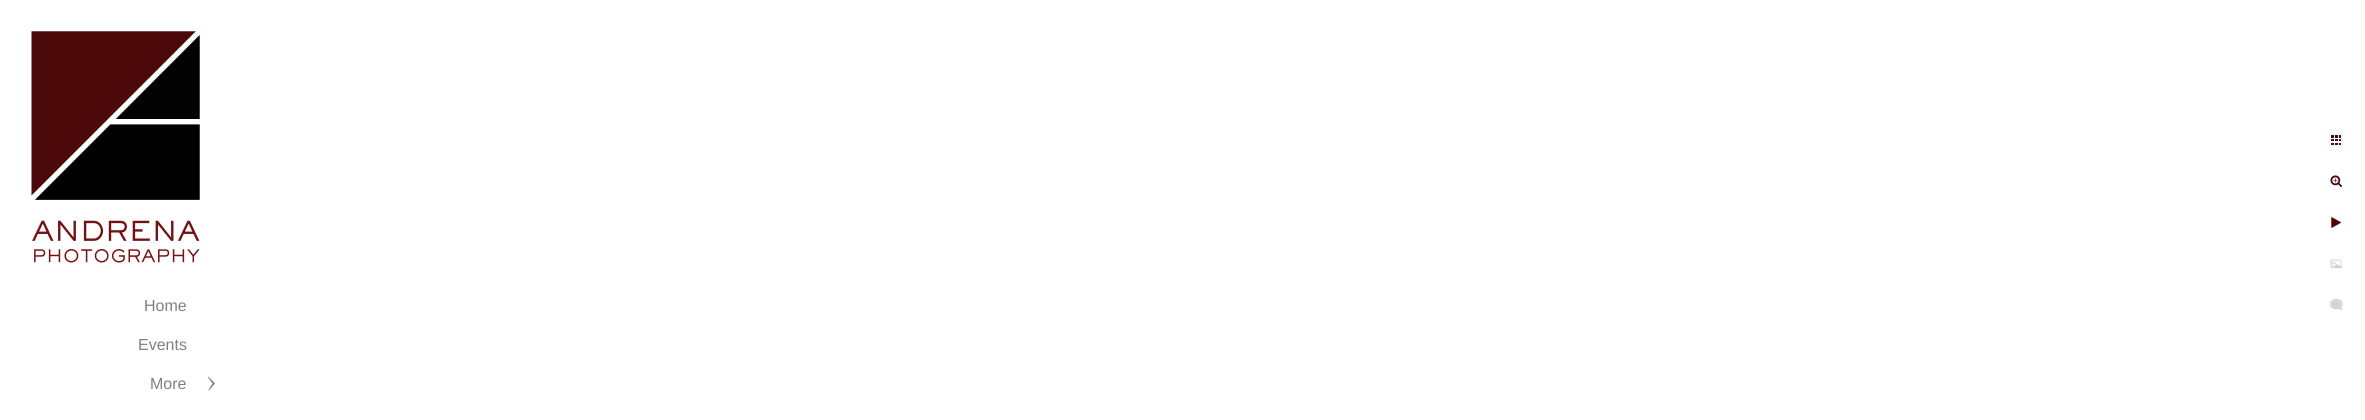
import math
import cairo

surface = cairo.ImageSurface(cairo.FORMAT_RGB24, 2365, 420)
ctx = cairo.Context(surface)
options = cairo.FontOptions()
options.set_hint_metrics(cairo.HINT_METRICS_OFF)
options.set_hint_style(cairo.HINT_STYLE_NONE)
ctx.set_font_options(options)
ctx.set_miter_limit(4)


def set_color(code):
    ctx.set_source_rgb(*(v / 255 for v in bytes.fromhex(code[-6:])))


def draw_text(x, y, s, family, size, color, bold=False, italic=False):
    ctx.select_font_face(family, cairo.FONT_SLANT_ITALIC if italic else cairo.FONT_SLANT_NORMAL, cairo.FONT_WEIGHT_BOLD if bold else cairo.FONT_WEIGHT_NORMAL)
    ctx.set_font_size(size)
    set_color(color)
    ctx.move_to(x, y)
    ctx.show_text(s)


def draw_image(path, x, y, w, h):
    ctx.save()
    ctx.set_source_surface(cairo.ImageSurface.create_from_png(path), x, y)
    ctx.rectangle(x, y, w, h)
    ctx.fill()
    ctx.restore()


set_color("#ffffff")
ctx.paint()
draw_image("assets/img1.png", 2331, 135, 10, 10)
draw_image("assets/img2.png", 2330, 175, 12, 12)
draw_image("assets/img3.png", 2331, 217, 11, 11)
draw_image("assets/img4.png", 2330, 259, 12, 10)
draw_image("assets/img5.png", 2329, 298, 14, 12)
draw_image("assets/img6.png", 31, 31, 169, 232)
draw_text(144, 311, "Home", "Liberation Sans", 16, "#808080")
draw_text(138, 350, "Events", "Liberation Sans", 16, "#808080")
draw_text(150, 389, "More", "Liberation Sans", 16, "#808080")
draw_image("assets/img7.png", 207, 376, 8, 15)
surface.write_to_png("output.png")
